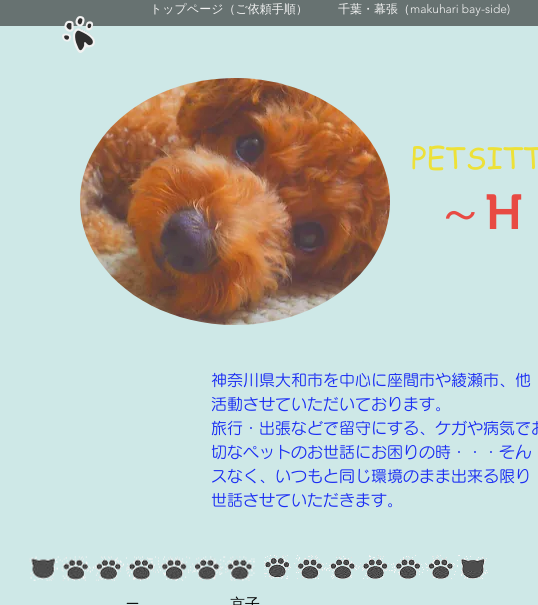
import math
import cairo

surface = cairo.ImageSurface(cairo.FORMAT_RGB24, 538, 605)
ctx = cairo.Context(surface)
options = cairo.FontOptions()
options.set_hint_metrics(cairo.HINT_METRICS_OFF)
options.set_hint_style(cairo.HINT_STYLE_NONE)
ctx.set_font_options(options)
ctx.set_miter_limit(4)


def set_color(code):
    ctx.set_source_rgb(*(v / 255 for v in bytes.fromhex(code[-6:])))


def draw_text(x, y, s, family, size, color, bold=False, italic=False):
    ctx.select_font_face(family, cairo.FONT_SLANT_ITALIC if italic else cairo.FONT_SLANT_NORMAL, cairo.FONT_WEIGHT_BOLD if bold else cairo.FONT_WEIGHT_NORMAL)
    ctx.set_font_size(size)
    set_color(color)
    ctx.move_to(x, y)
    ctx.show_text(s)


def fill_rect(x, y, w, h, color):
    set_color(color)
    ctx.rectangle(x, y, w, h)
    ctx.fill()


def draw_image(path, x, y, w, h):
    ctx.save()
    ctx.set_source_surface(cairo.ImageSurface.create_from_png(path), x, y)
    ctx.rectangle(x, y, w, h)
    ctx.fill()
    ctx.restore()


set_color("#cee8e7")
ctx.paint()
fill_rect(0, 0, 538, 26, "#677271")
draw_text(150, 13, "トップページ（ご依頼手順）", "WenQuanYi Zen Hei Medium", 12, "#f2f2f2")
draw_text(338, 13, "千葉・幕張（", "WenQuanYi Zen Hei Medium", 12, "#f2f2f2")
draw_text(410, 13, "makuhari bay-side)", "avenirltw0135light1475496 Light", 12, "#f2f2f2")
draw_image("assets/img1.png", 62, 16, 33, 37)
draw_image("assets/img2.png", 80, 78, 310, 247)
draw_text(411, 169, "PETSITT", "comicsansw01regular", 30, "#ede138")
draw_text(436, 229, "～", "WenQuanYi Zen Hei Medium", 49, "#e84a43")
draw_text(485, 229, "H", "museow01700 SemiBold", 49, "#e84a43")
draw_text(211, 386, "神奈川県大和市を中心に座間市や綾瀬市、他", "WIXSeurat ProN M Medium", 16, "#1a2df3")
draw_text(211, 410, "活動させていただいております。", "WIXSeurat ProN M Medium", 16, "#1a2df3")
draw_text(211, 434, "旅行・出張などで留守にする、ケガや病気でお", "WIXSeurat ProN M Medium", 16, "#1a2df3")
draw_text(211, 458, "切なペットのお世話にお困りの時・・・そん", "WIXSeurat ProN M Medium", 16, "#1a2df3")
draw_text(211, 482, "スなく、いつもと同じ環境のまま出来る限り", "WIXSeurat ProN M Medium", 16, "#1a2df3")
draw_text(211, 506, "世話させていただきます。", "WIXSeurat ProN M Medium", 16, "#1a2df3")
draw_image("assets/img3.png", 29, 556, 226, 25)
draw_image("assets/img4.png", 264, 555, 224, 24)
draw_text(125, 609, "ー", "WIXSeurat ProN M Medium", 15, "#000000")
draw_text(230, 609, "京子", "WenQuanYi Zen Hei Medium", 15, "#000000")
surface.write_to_png("output.png")
